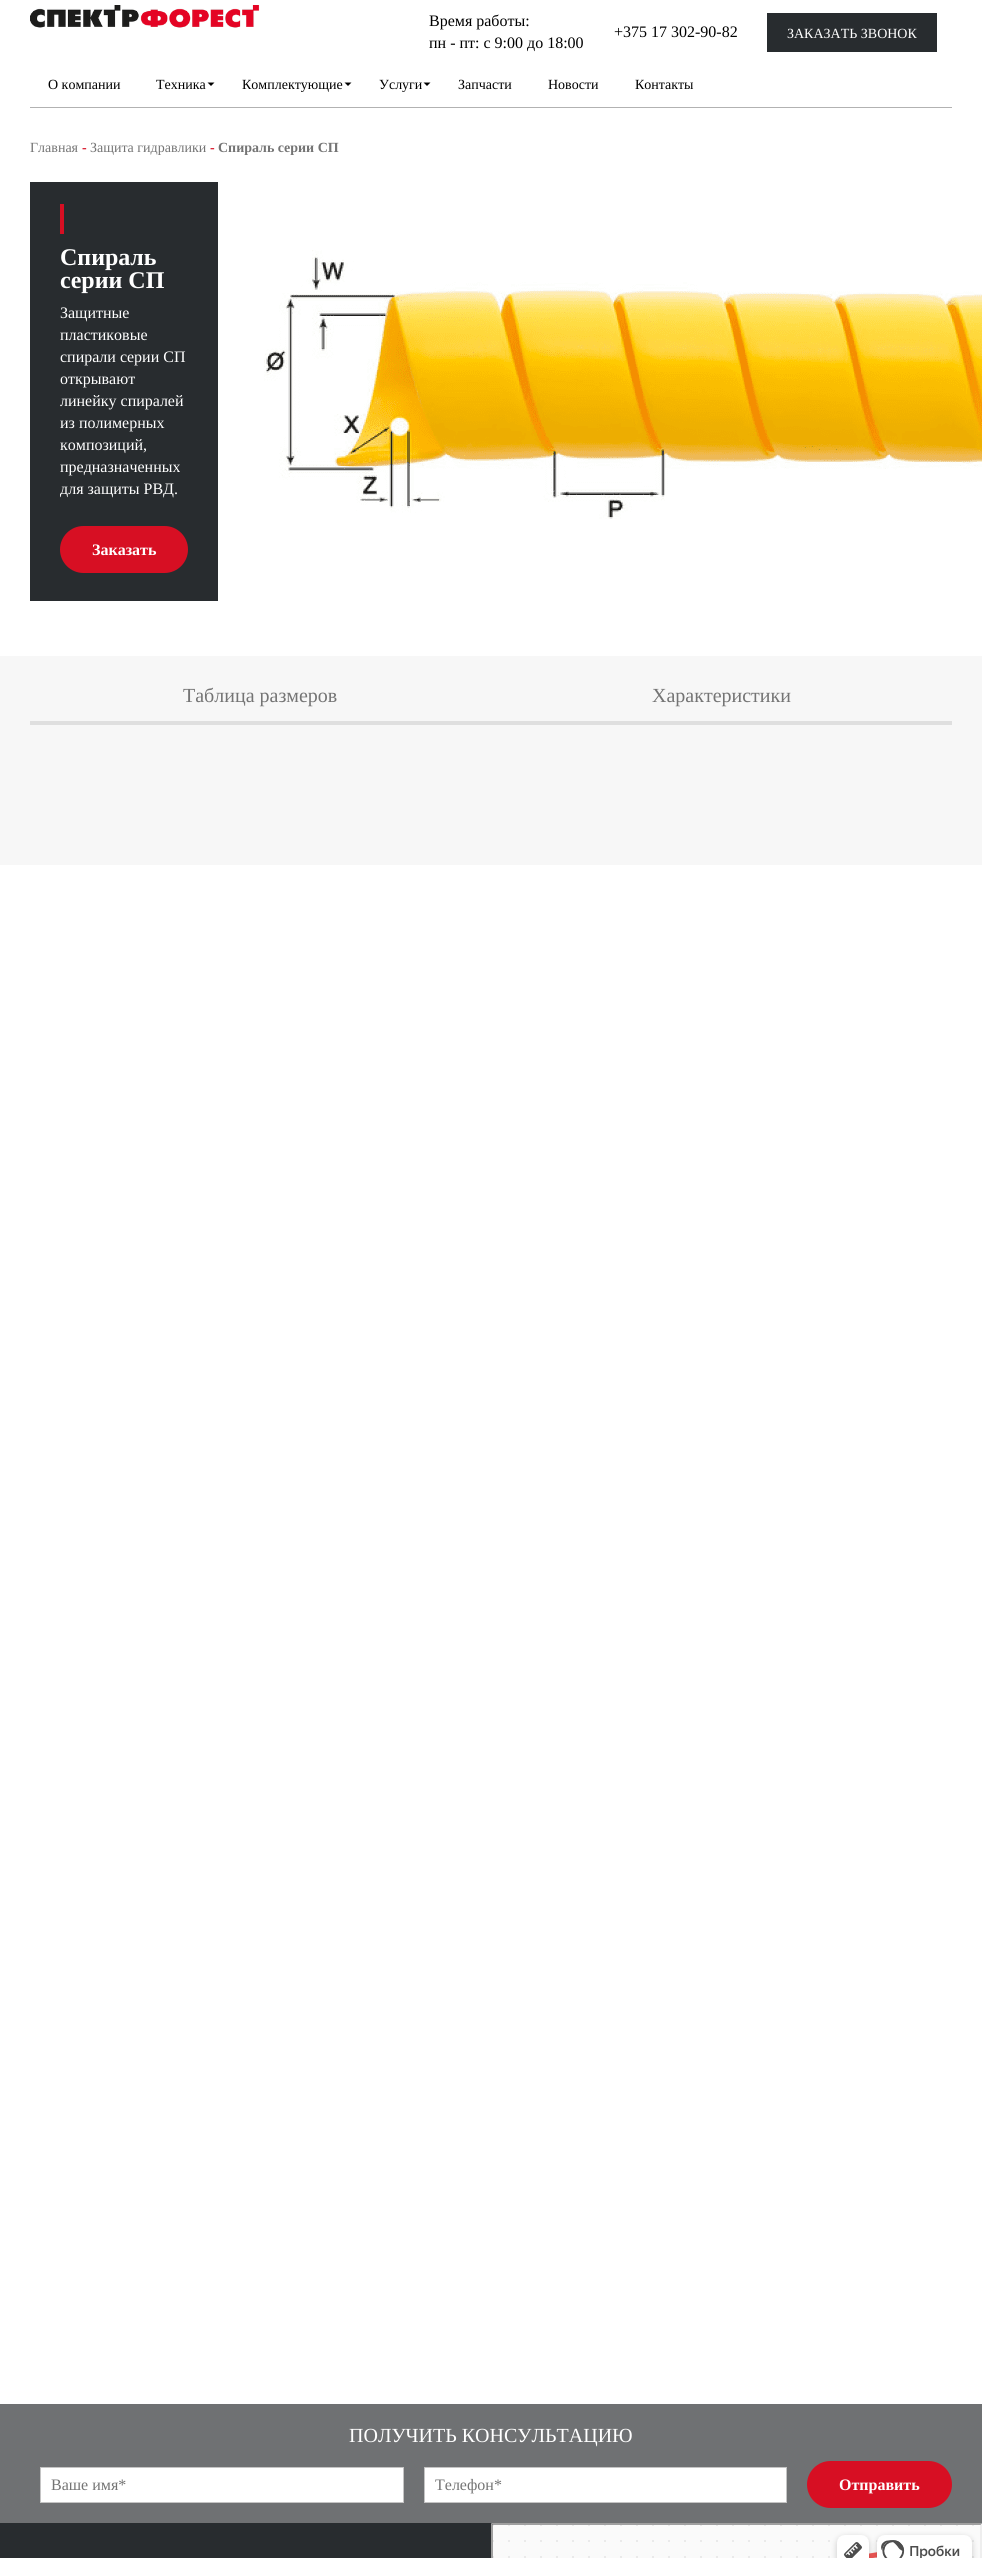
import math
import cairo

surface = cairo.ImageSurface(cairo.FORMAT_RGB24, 982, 2558)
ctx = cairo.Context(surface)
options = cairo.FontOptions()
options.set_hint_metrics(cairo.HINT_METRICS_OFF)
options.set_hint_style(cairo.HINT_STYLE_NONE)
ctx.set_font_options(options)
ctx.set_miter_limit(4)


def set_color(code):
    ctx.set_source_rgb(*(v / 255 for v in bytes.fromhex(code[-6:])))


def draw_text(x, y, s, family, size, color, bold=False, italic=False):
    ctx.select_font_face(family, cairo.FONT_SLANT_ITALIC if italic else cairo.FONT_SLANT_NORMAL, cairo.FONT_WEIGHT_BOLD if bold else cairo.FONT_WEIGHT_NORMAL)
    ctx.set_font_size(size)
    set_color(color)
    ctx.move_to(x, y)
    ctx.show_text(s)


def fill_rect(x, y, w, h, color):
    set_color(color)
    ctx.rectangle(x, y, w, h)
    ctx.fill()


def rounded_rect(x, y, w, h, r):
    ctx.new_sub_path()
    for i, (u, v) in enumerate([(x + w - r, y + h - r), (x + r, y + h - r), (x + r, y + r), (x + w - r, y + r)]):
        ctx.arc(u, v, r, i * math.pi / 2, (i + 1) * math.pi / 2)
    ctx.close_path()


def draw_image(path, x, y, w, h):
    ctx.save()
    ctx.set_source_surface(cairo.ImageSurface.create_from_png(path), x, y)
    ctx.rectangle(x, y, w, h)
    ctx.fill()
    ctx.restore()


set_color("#ffffff")
ctx.paint()
fill_rect(30, 107, 922, 1, "#b2b2b2")
draw_image("assets/img1.png", 30, 5, 230, 23)
draw_text(429, 26, "Время работы:", "Liberation Serif", 16, "#000000")
draw_text(429, 48, "пн - пт: с 9:00 до 18:00", "Liberation Serif", 16, "#000000")
draw_text(614, 37, "+375 17 302-90-82", "Liberation Serif", 16, "#000000")
fill_rect(767, 13, 170, 39, "#282c2f")
draw_text(787, 38, "ЗАКАЗАТЬ ЗВОНОК", "Liberation Serif", 14, "#ffffff")
draw_text(48, 89, "О компании", "Liberation Serif", 14, "#000000")
draw_text(156, 89, "Техника", "Liberation Serif", 14, "#000000")
ctx.new_path()
ctx.move_to(207.5, 82.5)
ctx.line_to(211, 86)
ctx.line_to(214.5, 82.5)
ctx.close_path()
ctx.fill()
draw_text(242, 89, "Комплектующие", "Liberation Serif", 14, "#000000")
ctx.new_path()
ctx.move_to(344.5, 82.5)
ctx.line_to(348, 86)
ctx.line_to(351.5, 82.5)
ctx.close_path()
ctx.fill()
draw_text(379, 89, "Услуги", "Liberation Serif", 14, "#000000")
ctx.new_path()
ctx.move_to(423.5, 82.5)
ctx.line_to(427, 86)
ctx.line_to(430.5, 82.5)
ctx.close_path()
ctx.fill()
draw_text(458, 89, "Запчасти", "Liberation Serif", 14, "#000000")
draw_text(548, 89, "Новости", "Liberation Serif", 14, "#000000")
draw_text(635, 89, "Контакты", "Liberation Serif", 14, "#000000")
draw_text(30, 152, "Главная", "Liberation Serif", 14, "#747474")
draw_text(82, 152, "-", "Liberation Serif", 14, "#d70f23", bold=True)
draw_text(90, 152, "Защита гидравлики", "Liberation Serif", 14, "#747474")
draw_text(210, 152, "-", "Liberation Serif", 14, "#d70f23", bold=True)
draw_text(218, 152, "Спираль серии СП", "Liberation Serif", 14, "#747474", bold=True)
fill_rect(30, 182, 188, 419, "#282c2f")
fill_rect(60, 204, 4, 30, "#d70f23")
draw_text(60, 265, "Спираль", "Liberation Serif", 24, "#ffffff", bold=True)
draw_text(60, 288, "серии СП", "Liberation Serif", 24, "#ffffff", bold=True)
draw_text(60, 318, "Защитные", "Liberation Serif", 16, "#ffffff")
draw_text(60, 340, "пластиковые", "Liberation Serif", 16, "#ffffff")
draw_text(60, 362, "спирали серии СП", "Liberation Serif", 16, "#ffffff")
draw_text(60, 384, "открывают", "Liberation Serif", 16, "#ffffff")
draw_text(60, 406, "линейку спиралей", "Liberation Serif", 16, "#ffffff")
draw_text(60, 428, "из полимерных", "Liberation Serif", 16, "#ffffff")
draw_text(60, 450, "композиций,", "Liberation Serif", 16, "#ffffff")
draw_text(60, 472, "предназначенных", "Liberation Serif", 16, "#ffffff")
draw_text(60, 494, "для защиты РВД.", "Liberation Serif", 16, "#ffffff")
set_color("#d70f23")
rounded_rect(60, 526, 128, 47, 23.5)
ctx.fill()
draw_text(92, 555, "Заказать", "Liberation Serif", 16, "#ffffff", bold=True)
draw_image("assets/img2.png", 264, 250, 718, 269)
fill_rect(0, 656, 982, 209, "#f7f7f7")
fill_rect(30, 721, 922, 4, "#dfdfdf")
draw_text(183, 702, "Таблица размеров", "Liberation Serif", 20, "#747474")
draw_text(652, 702, "Характеристики", "Liberation Serif", 20, "#747474")
fill_rect(0, 2404, 982, 119, "#6f7173")
draw_text(349, 2442, "ПОЛУЧИТЬ КОНСУЛЬТАЦИЮ", "Liberation Serif", 20, "#ffffff")
ctx.rectangle(40.5, 2467.5, 363, 35)
ctx.fill_preserve()
set_color("#c4c4c4")
ctx.set_line_width(1)
ctx.stroke()
draw_text(51, 2490, "Ваше имя*", "Liberation Serif", 16, "#747474")
set_color("#ffffff")
ctx.rectangle(424.5, 2467.5, 362, 35)
ctx.fill_preserve()
set_color("#c4c4c4")
ctx.stroke()
draw_text(435, 2490, "Телефон*", "Liberation Serif", 16, "#747474")
set_color("#d70f23")
rounded_rect(807, 2461, 145, 47, 23.5)
ctx.fill()
draw_text(839, 2490, "Отправить", "Liberation Serif", 16, "#ffffff", bold=True)
fill_rect(0, 2523, 982, 35, "#282c2f")
set_color("#9f9f9f")
ctx.new_path()
ctx.move_to(491, 2523)
ctx.line_to(982, 2523)
ctx.line_to(980, 2525)
ctx.line_to(493, 2525)
ctx.close_path()
ctx.fill()
set_color("#eeeeee")
ctx.new_path()
ctx.move_to(982, 2523)
ctx.line_to(982, 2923)
ctx.line_to(980, 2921)
ctx.line_to(980, 2525)
ctx.close_path()
ctx.fill()
set_color("#9f9f9f")
ctx.new_path()
ctx.move_to(491, 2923)
ctx.line_to(491, 2523)
ctx.line_to(493, 2525)
ctx.line_to(493, 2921)
ctx.close_path()
ctx.fill()
draw_image("assets/img3.png", 493, 2525, 487, 33)
surface.write_to_png("output.png")
